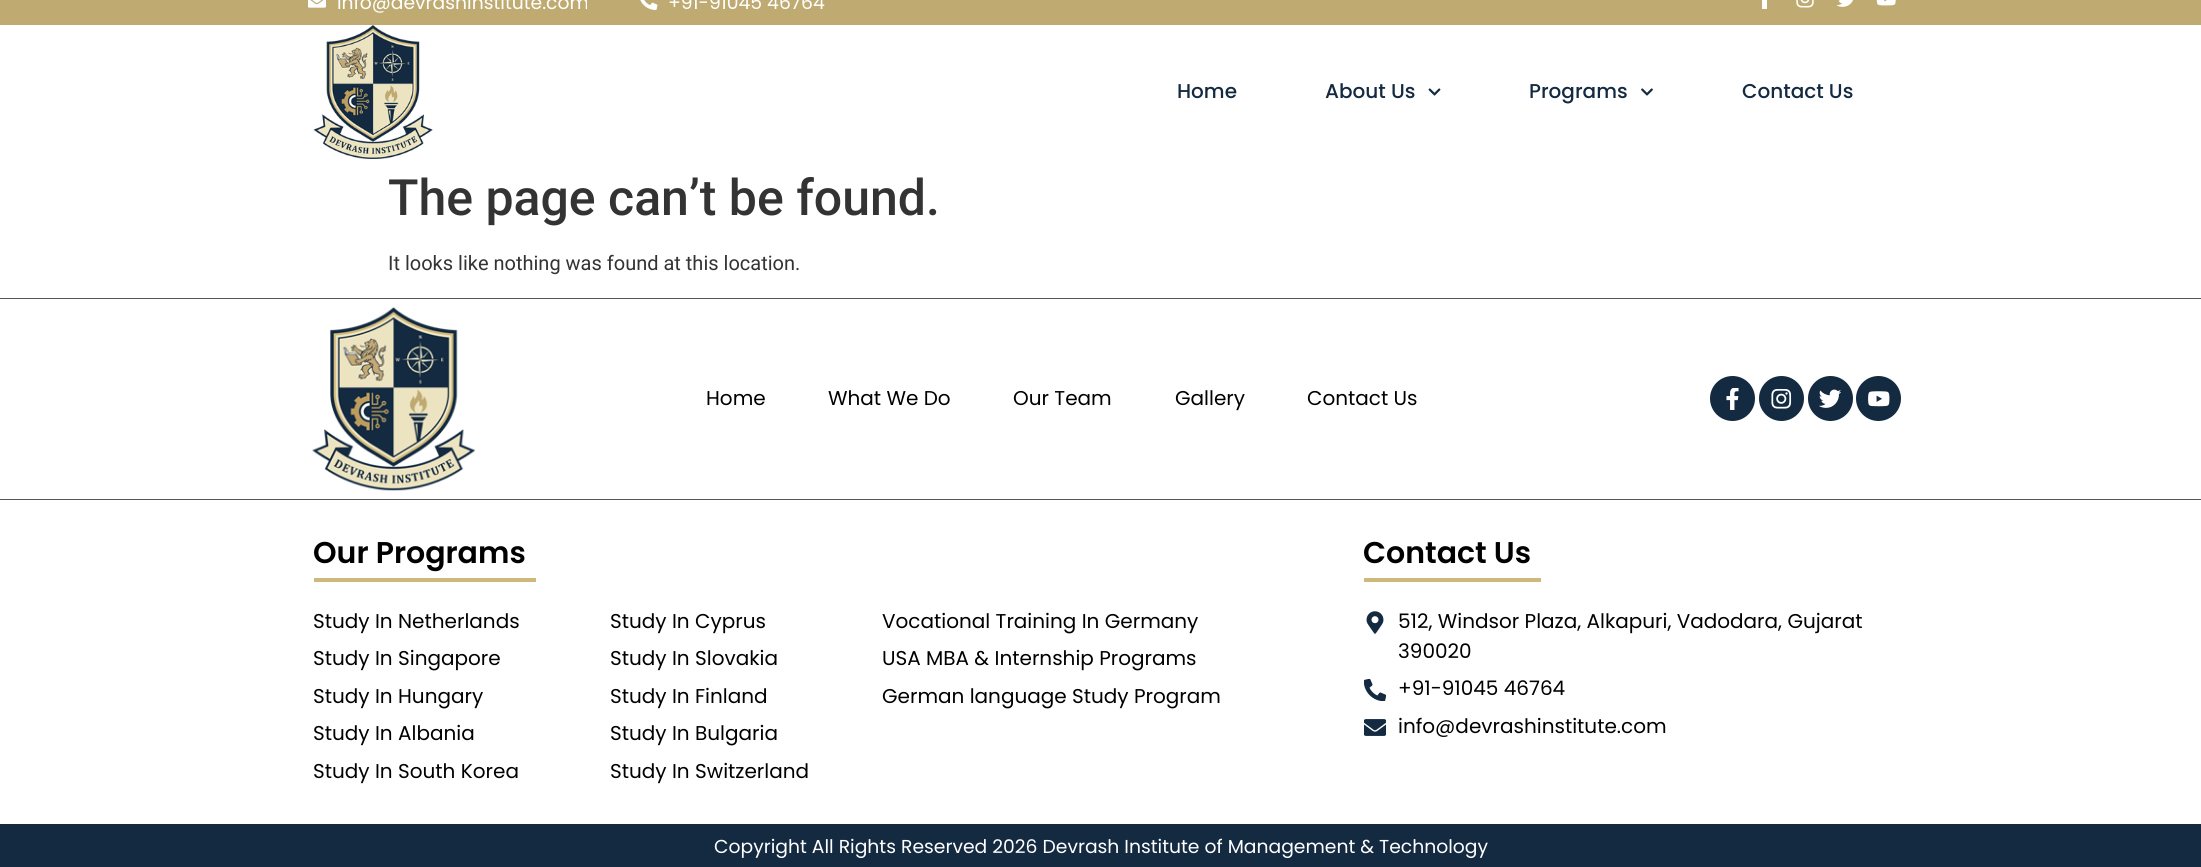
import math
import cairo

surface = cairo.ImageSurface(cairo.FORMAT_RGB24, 2201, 867)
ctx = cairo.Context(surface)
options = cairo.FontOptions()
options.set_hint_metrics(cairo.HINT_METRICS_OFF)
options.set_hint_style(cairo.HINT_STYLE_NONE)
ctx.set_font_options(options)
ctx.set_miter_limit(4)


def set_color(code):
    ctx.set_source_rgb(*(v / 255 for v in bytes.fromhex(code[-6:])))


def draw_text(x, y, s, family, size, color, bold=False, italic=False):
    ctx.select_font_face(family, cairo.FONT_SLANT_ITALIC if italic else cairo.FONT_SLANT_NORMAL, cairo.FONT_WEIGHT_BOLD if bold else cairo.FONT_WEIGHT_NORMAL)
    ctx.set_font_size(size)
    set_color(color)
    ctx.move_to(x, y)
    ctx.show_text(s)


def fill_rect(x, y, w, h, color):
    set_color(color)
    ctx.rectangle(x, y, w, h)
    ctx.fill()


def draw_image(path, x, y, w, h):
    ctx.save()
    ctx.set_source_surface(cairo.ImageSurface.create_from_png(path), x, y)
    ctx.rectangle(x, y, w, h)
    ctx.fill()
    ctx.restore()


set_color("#ffffff")
ctx.paint()
fill_rect(0, 0, 2201, 25, "#bfab72")
draw_image("assets/img1.png", 308, 0, 18, 8)
draw_text(337, 9, "info@devrashinstitute.com", "Poppins", 18.75, "#ffffff")
draw_image("assets/img2.png", 640, 0, 18, 10)
draw_text(668, 9, "+91-91045 46764", "Poppins", 18.75, "#ffffff")
fill_rect(1762, 0, 5, 9, "#ffffff")
draw_image("assets/img3.png", 1796, 0, 18, 8)
draw_image("assets/img4.png", 1836, 0, 17, 7)
draw_image("assets/img5.png", 1876, 0, 20, 6)
draw_image("assets/img6.png", 313, 25, 120, 134)
draw_text(1177, 98, "Home", "Poppins Medium", 20, "#132a41")
draw_text(1325, 98, "About Us", "Poppins Medium", 20, "#132a41")
draw_image("assets/img7.png", 1428, 88, 13, 8)
draw_text(1529, 98, "Programs", "Poppins Medium", 20, "#132a41")
draw_image("assets/img8.png", 1641, 88, 12, 8)
draw_text(1742, 98, "Contact Us", "Poppins Medium", 20, "#132a41")
draw_text(388, 215, "The page can’t be found.", "Roboto Medium", 50, "#333333")
draw_text(388, 270, "It looks like nothing was found at this location.", "Roboto", 20, "#333333")
fill_rect(0, 298, 2201, 1, "#585555")
fill_rect(0, 499, 2201, 1, "#585555")
draw_image("assets/img9.png", 312, 307, 163, 184)
draw_text(706, 405, "Home", "Poppins", 20, "#000000")
draw_text(828, 405, "What We Do", "Poppins", 20, "#000000")
draw_text(1013, 405, "Our Team", "Poppins", 20, "#000000")
draw_text(1175, 405, "Gallery", "Poppins", 20, "#000000")
draw_text(1307, 405, "Contact Us", "Poppins", 20, "#000000")
set_color("#132a41")
ctx.new_path()
ctx.arc(1732.5, 398.5, 22.5, 0, 2 * math.pi)
ctx.fill()
draw_image("assets/img10.png", 1726, 388, 13, 22)
ctx.arc(1781.5, 398.5, 22.5, 0, 2 * math.pi)
ctx.fill()
draw_image("assets/img11.png", 1771, 389, 21, 20)
ctx.arc(1830.5, 398.5, 22.5, 0, 2 * math.pi)
ctx.fill()
draw_image("assets/img12.png", 1819, 389, 22, 19)
ctx.arc(1878.5, 398.5, 22.5, 0, 2 * math.pi)
ctx.fill()
draw_image("assets/img13.png", 1868, 391, 22, 16)
fill_rect(314, 578, 222, 4, "#cfb87b")
draw_text(313, 563, "Our Programs", "Poppins SemiBold", 30, "#000000")
draw_text(313, 628, "Study In Netherlands", "Poppins", 20, "#000000")
draw_text(313, 665, "Study In Singapore", "Poppins", 20, "#000000")
draw_text(313, 703, "Study In Hungary", "Poppins", 20, "#000000")
draw_text(313, 740, "Study In Albania", "Poppins", 20, "#000000")
draw_text(313, 778, "Study In South Korea", "Poppins", 20, "#000000")
draw_text(610, 628, "Study In Cyprus", "Poppins", 20, "#000000")
draw_text(610, 665, "Study In Slovakia", "Poppins", 20, "#000000")
draw_text(610, 703, "Study In Finland", "Poppins", 20, "#000000")
draw_text(610, 740, "Study In Bulgaria", "Poppins", 20, "#000000")
draw_text(610, 778, "Study In Switzerland", "Poppins", 20, "#000000")
draw_text(882, 628, "Vocational Training In Germany", "Poppins", 20, "#000000")
draw_text(882, 665, "USA MBA & Internship Programs", "Poppins", 20, "#000000")
draw_text(882, 703, "German language Study Program", "Poppins", 20, "#000000")
fill_rect(1364, 578, 177, 4, "#cfb87b")
draw_text(1363, 563, "Contact Us", "Poppins SemiBold", 30, "#000000")
draw_image("assets/img14.png", 1366, 611, 18, 23)
draw_text(1398, 628, "512, Windsor Plaza, Alkapuri, Vadodara, Gujarat", "Poppins", 20, "#000000")
draw_text(1398, 658, "390020", "Poppins", 20, "#000000")
draw_image("assets/img15.png", 1364, 679, 22, 22)
draw_text(1398, 695, "+91-91045 46764", "Poppins", 20, "#000000")
draw_image("assets/img16.png", 1364, 719, 22, 17)
draw_text(1398, 733, "info@devrashinstitute.com", "Poppins", 20, "#000000")
fill_rect(0, 824, 2201, 43, "#132a41")
draw_text(714, 853, "Copyright All Rights Reserved 2026 Devrash Institute of Management & Technology", "Poppins", 18.75, "#ffffff")
surface.write_to_png("output.png")
